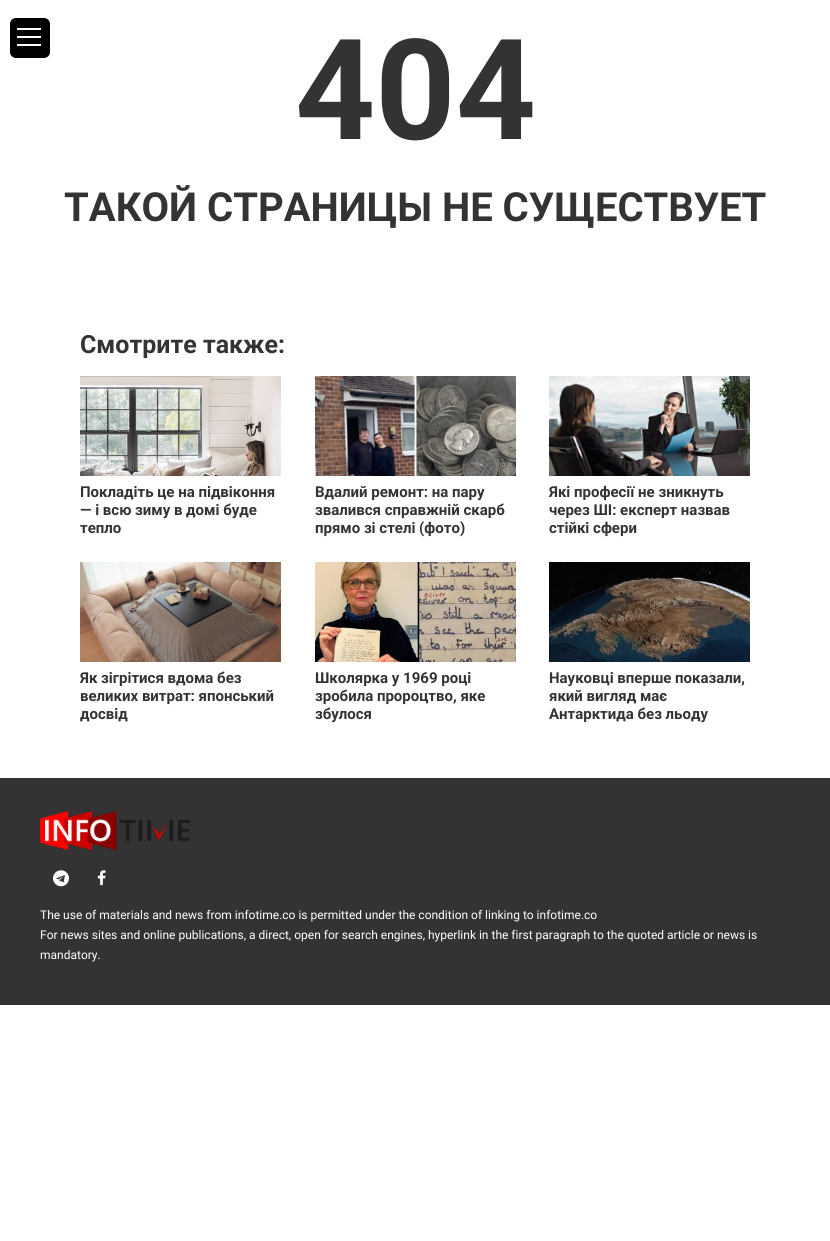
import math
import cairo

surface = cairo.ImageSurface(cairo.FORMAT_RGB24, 830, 1241)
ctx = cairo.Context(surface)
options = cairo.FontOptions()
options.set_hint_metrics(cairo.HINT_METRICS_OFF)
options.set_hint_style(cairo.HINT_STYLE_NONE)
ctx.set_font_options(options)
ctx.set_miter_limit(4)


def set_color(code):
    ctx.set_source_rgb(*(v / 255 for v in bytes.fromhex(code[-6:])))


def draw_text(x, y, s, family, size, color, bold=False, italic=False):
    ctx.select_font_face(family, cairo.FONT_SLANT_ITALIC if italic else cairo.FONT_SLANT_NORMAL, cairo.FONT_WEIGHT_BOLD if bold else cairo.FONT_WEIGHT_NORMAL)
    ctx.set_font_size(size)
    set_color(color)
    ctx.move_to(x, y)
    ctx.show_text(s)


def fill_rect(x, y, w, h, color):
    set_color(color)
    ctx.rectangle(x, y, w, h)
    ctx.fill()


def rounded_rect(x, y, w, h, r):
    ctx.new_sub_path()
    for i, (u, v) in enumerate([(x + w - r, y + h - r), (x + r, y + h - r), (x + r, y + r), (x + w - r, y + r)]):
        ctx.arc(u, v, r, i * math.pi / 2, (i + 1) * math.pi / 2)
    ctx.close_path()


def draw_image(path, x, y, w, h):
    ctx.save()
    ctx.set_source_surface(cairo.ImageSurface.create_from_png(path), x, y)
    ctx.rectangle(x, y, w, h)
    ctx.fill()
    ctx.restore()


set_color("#ffffff")
ctx.paint()
set_color("#000000")
rounded_rect(10, 18, 40, 40, 6)
ctx.fill()
fill_rect(17, 36, 24, 2, "#ffffff")
fill_rect(17, 28, 24, 2, "#ffffff")
fill_rect(17, 44, 24, 2, "#ffffff")
draw_text(295, 139, "404", "Roboto", 140, "#333333", bold=True)
draw_text(64, 221, "ТАКОЙ СТРАНИЦЫ НЕ СУЩЕСТВУЕТ", "Roboto", 40, "#333333", bold=True)
draw_text(80, 353, "Смотрите также:", "Roboto", 25, "#333333", bold=True)
draw_image("assets/img1.png", 80, 376, 201, 100)
draw_text(80, 497, "Покладіть це на підвіконня", "Roboto", 15, "#333333", bold=True)
draw_text(80, 515, "— і всю зиму в домі буде", "Roboto", 15, "#333333", bold=True)
draw_text(80, 533, "тепло", "Roboto", 15, "#333333", bold=True)
draw_image("assets/img2.png", 315, 376, 201, 100)
draw_text(315, 497, "Вдалий ремонт: на пару", "Roboto", 15, "#333333", bold=True)
draw_text(315, 515, "звалився справжній скарб", "Roboto", 15, "#333333", bold=True)
draw_text(315, 533, "прямо зі стелі (фото)", "Roboto", 15, "#333333", bold=True)
draw_image("assets/img3.png", 549, 376, 201, 100)
draw_text(549, 497, "Які професії не зникнуть", "Roboto", 15, "#333333", bold=True)
draw_text(549, 515, "через ШІ: експерт назвав", "Roboto", 15, "#333333", bold=True)
draw_text(549, 533, "стійкі сфери", "Roboto", 15, "#333333", bold=True)
draw_image("assets/img4.png", 80, 562, 201, 100)
draw_text(80, 683, "Як зігрітися вдома без", "Roboto", 15, "#333333", bold=True)
draw_text(80, 701, "великих витрат: японський", "Roboto", 15, "#333333", bold=True)
draw_text(80, 719, "досвід", "Roboto", 15, "#333333", bold=True)
draw_image("assets/img5.png", 315, 562, 201, 100)
draw_text(315, 683, "Школярка у 1969 році", "Roboto", 15, "#333333", bold=True)
draw_text(315, 701, "зробила пророцтво, яке", "Roboto", 15, "#333333", bold=True)
draw_text(315, 719, "збулося", "Roboto", 15, "#333333", bold=True)
draw_image("assets/img6.png", 549, 562, 201, 100)
draw_text(549, 683, "Науковці вперше показали,", "Roboto", 15, "#333333", bold=True)
draw_text(549, 701, "який вигляд має", "Roboto", 15, "#333333", bold=True)
draw_text(549, 719, "Антарктида без льоду", "Roboto", 15, "#333333", bold=True)
fill_rect(0, 778, 830, 227, "#333333")
draw_image("assets/img7.png", 40, 811, 150, 39)
draw_image("assets/img8.png", 53, 870, 16, 17)
draw_image("assets/img9.png", 97, 870, 9, 16)
draw_text(40, 919, "The use of materials and news from infotime.co is permitted under the condition of linking to infotime.co", "Roboto", 12, "#ffffff")
draw_text(40, 939, "For news sites and online publications, a direct, open for search engines, hyperlink in the first paragraph to the quoted article or news is", "Roboto", 12, "#ffffff")
draw_text(40, 959, "mandatory.", "Roboto", 12, "#ffffff")
surface.write_to_png("output.png")
